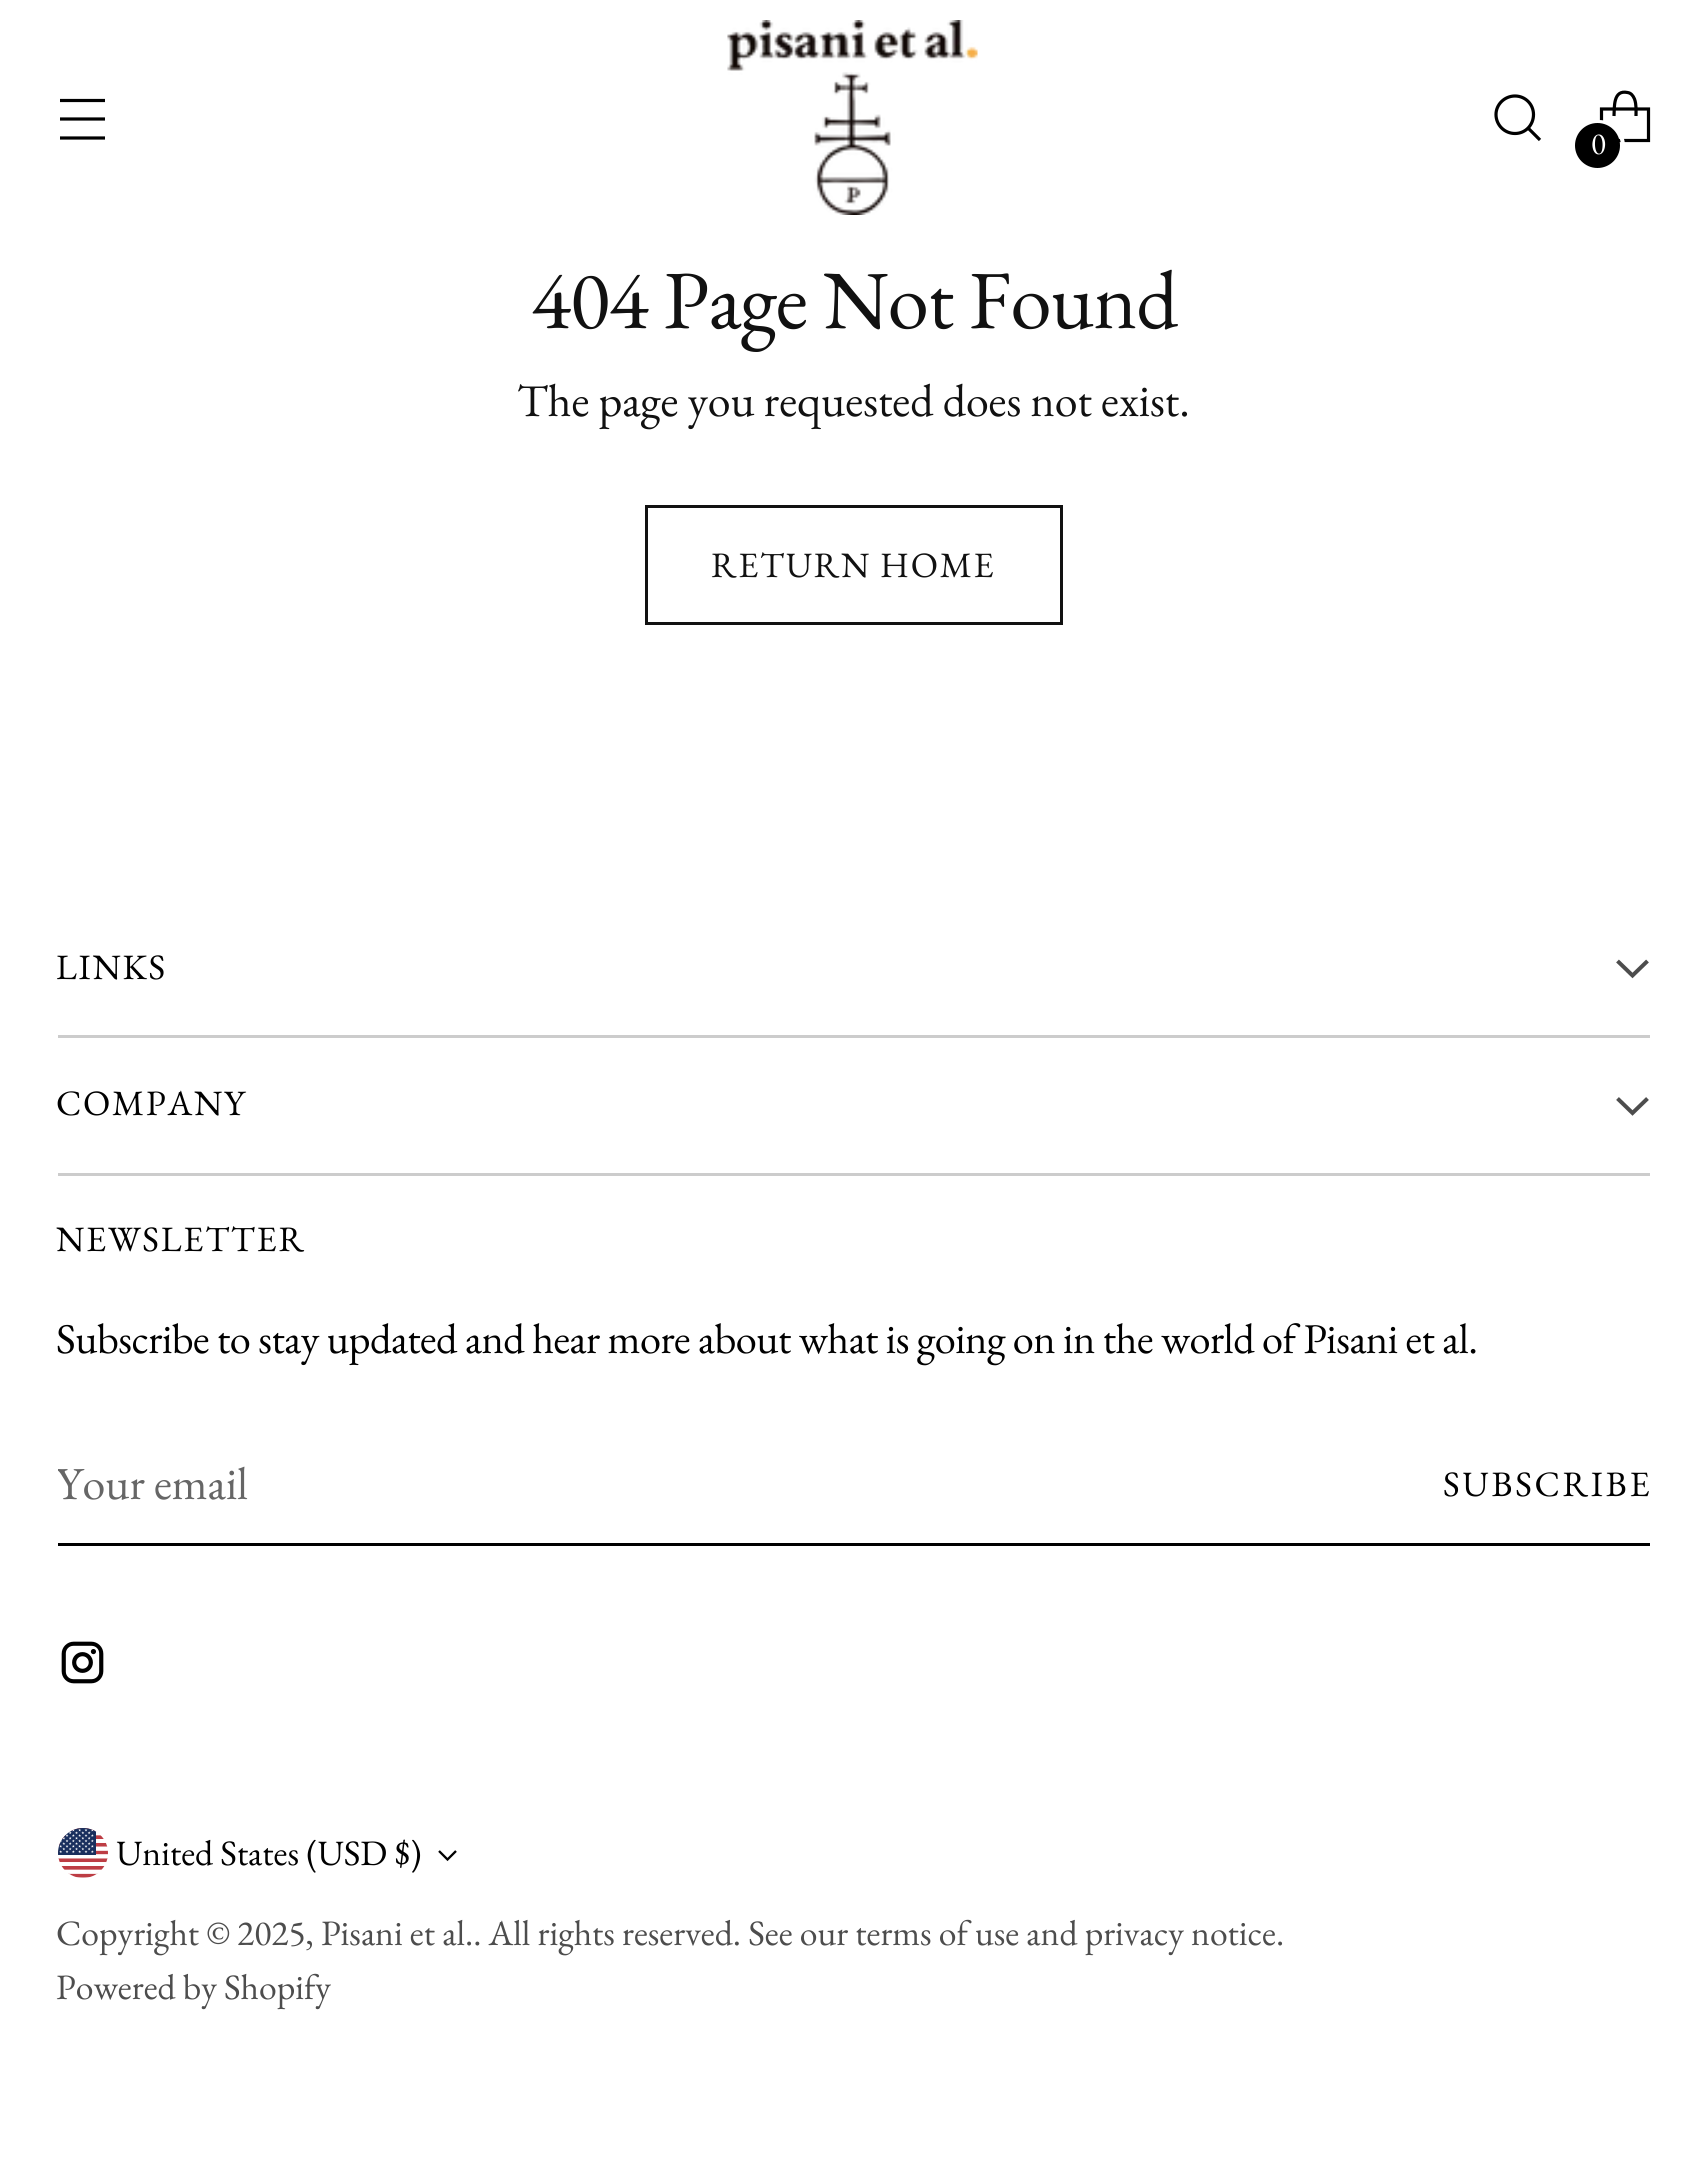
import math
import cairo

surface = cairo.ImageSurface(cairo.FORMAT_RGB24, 1707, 2173)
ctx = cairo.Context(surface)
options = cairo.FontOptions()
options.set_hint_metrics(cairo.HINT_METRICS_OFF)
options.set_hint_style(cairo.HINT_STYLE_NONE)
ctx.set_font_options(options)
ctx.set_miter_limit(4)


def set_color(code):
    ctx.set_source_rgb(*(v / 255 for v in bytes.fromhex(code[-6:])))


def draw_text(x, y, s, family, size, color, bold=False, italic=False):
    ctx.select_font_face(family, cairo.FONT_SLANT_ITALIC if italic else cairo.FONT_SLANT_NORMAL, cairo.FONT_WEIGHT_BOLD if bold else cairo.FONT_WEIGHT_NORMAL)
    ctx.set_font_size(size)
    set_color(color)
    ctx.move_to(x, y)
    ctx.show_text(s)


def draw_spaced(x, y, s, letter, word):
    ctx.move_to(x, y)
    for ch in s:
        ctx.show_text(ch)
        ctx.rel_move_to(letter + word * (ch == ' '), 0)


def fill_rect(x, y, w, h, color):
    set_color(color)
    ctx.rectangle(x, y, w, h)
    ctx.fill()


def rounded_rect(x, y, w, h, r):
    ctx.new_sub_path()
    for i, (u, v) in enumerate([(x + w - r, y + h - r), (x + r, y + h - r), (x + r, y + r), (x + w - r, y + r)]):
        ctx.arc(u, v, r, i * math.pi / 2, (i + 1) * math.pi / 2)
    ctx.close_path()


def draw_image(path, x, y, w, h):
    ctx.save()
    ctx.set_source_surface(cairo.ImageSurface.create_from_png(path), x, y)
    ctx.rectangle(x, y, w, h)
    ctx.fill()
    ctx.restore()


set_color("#ffffff")
ctx.paint()
ctx.new_path()
ctx.move_to(60, 119)
ctx.line_to(105, 119)
ctx.move_to(60, 100.5)
ctx.line_to(105, 100.5)
ctx.move_to(60, 138)
ctx.line_to(105, 138)
set_color("#000000")
ctx.set_line_width(3.2)
ctx.stroke()
draw_image("assets/img1.png", 727, 20, 251, 195)
ctx.new_path()
ctx.move_to(1515, 133.5)
ctx.curve_to(1525.5, 133.5, 1533.5, 125, 1533.5, 114.5)
ctx.curve_to(1533.5, 104.5, 1525.5, 96, 1515, 96)
ctx.curve_to(1504.5, 96, 1496, 104.5, 1496, 114.5)
ctx.curve_to(1496, 125, 1504.5, 133.5, 1515, 133.5)
ctx.close_path()
ctx.set_line_cap(cairo.LINE_CAP_ROUND)
ctx.stroke()
ctx.new_path()
ctx.move_to(1528.5, 128.5)
ctx.line_to(1540, 140)
ctx.set_line_cap(cairo.LINE_CAP_BUTT)
ctx.stroke()
ctx.new_path()
ctx.move_to(1636, 116)
ctx.curve_to(1636, 110.5, 1636.5, 104.5, 1634.5, 99)
ctx.curve_to(1633, 95.5, 1631, 93, 1627.5, 92.5)
ctx.curve_to(1613, 89.5, 1614.5, 107, 1614, 116)
ctx.set_line_join(cairo.LINE_JOIN_BEVEL)
ctx.stroke()
ctx.new_path()
ctx.move_to(1648.5, 140.5)
ctx.line_to(1648.5, 109)
ctx.line_to(1601.5, 109)
ctx.line_to(1601.5, 140.5)
ctx.close_path()
ctx.set_line_join(cairo.LINE_JOIN_MITER)
ctx.stroke()
rounded_rect(1575, 122, 48, 49, 24)
set_color("#ffffff")
ctx.set_line_width(4)
ctx.stroke()
set_color("#000000")
ctx.arc(1597.5, 145.5, 22.5, 0, 2 * math.pi)
ctx.fill()
draw_text(1591, 154, "0", "EB Garamond", 31, "#ffffff")
ctx.set_font_size(82.75)
set_color("#111111")
draw_spaced(531, 328, "404 Page Not Found", -0.8, 0)
draw_text(517, 416, "The page you requested does not exist.", "EB Garamond", 45.9, "#111111")
ctx.rectangle(646.5, 506.5, 415, 117)
ctx.set_line_width(3)
ctx.stroke()
ctx.set_font_size(35.7)
draw_spaced(711, 577, "RETURN HOME", 1.75, 0)
fill_rect(58, 1035, 1592, 3, "#cccccc")
set_color("#000000")
draw_spaced(56, 979, "LINKS", 1.75, 0)
ctx.new_path()
ctx.move_to(1617.5, 961)
ctx.line_to(1632.5, 975.5)
ctx.line_to(1647.5, 961)
set_color("#4d4d4d")
ctx.set_line_width(4)
ctx.stroke()
fill_rect(58, 1173, 1592, 3, "#cccccc")
set_color("#000000")
draw_spaced(56, 1115, "COMPANY", 1.75, 0)
ctx.new_path()
ctx.move_to(1617.5, 1098.5)
ctx.line_to(1632.5, 1113)
ctx.line_to(1647.5, 1098.5)
set_color("#4d4d4d")
ctx.stroke()
set_color("#000000")
draw_spaced(56, 1251, "NEWSLETTER", 1.75, 0)
ctx.set_font_size(42.35)
draw_spaced(56, 1353, "Subscribe to stay updated and hear more about what is going on in the world of Pisani et al.", -0.5, 0)
fill_rect(58, 1543, 1592, 3, "#000000")
ctx.save()
ctx.rectangle(58, 1453, 1592, 57)
ctx.clip()
draw_text(56, 1499, "Your email", "EB Garamond", 45.9, "#666666")
ctx.restore()
ctx.set_font_size(35.7)
draw_spaced(1443, 1496, "SUBSCRIBE", 2.75, 0)
draw_image("assets/img2.png", 61, 1641, 43, 43)
draw_image("assets/img3.png", 58, 1828, 50, 50)
draw_text(116, 1865, "United States (USD $)", "EB Garamond", 35.7, "#000000")
ctx.new_path()
ctx.move_to(439, 1851)
ctx.line_to(447.5, 1859.5)
ctx.line_to(456, 1851)
ctx.set_line_width(2.3)
ctx.stroke()
draw_text(56, 1945, "Copyright © 2025, Pisani et al.. All rights reserved. See our terms of use and privacy notice.", "EB Garamond", 35.7, "#4d4d4d")
draw_text(56, 1999, "Powered by Shopify", "EB Garamond", 35.7, "#4d4d4d")
surface.write_to_png("output.png")
